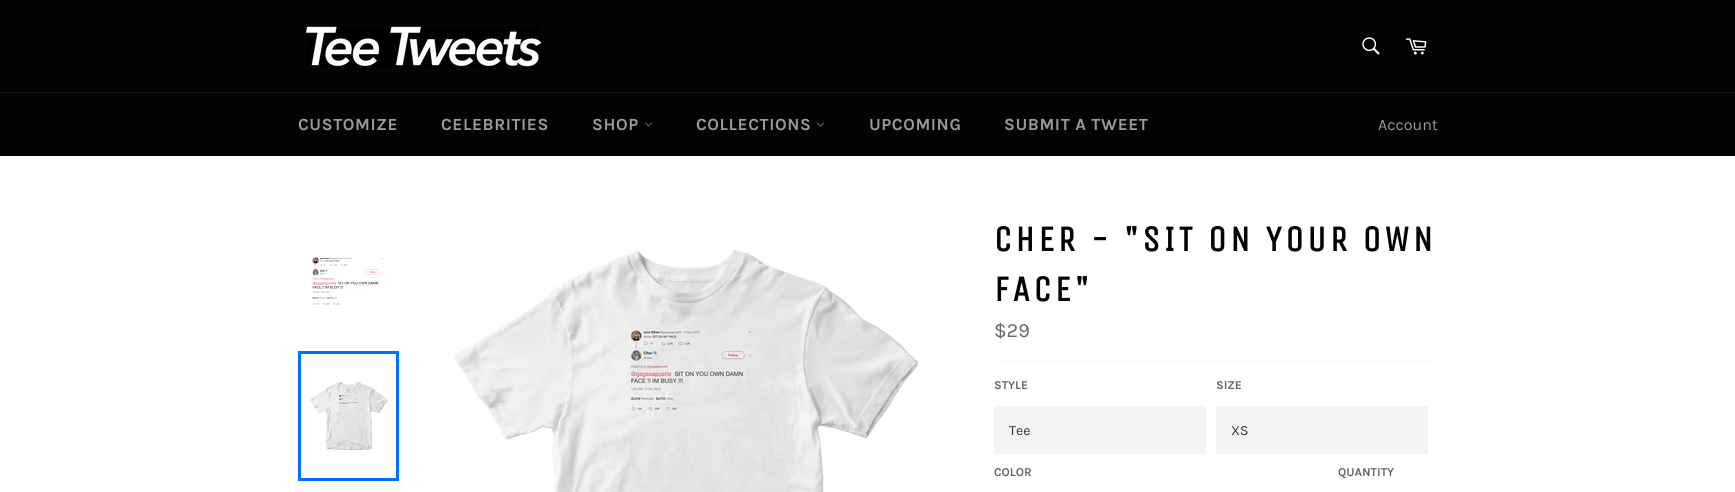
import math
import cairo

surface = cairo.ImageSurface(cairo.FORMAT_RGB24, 1735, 492)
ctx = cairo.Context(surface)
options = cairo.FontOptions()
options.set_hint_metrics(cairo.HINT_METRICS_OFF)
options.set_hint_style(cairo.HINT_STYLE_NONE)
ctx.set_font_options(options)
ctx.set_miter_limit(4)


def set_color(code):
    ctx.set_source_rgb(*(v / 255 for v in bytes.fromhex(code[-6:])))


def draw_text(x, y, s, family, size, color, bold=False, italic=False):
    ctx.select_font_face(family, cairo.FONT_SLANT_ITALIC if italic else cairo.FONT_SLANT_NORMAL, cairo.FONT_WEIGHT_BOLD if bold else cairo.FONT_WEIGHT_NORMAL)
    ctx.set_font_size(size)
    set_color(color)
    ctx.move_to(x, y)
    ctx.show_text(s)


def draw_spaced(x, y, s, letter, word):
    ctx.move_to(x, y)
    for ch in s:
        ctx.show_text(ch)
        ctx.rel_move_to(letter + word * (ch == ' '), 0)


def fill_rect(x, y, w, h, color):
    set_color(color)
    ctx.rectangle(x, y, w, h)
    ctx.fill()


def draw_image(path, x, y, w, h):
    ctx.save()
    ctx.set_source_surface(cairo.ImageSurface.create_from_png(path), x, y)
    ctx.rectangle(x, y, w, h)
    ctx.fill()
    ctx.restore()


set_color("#030303")
ctx.paint()
draw_image("assets/img1.png", 306, 26, 235, 41)
draw_image("assets/img2.png", 1362, 37, 18, 18)
draw_image("assets/img3.png", 1405, 38, 22, 17)
fill_rect(0, 92, 1735, 1, "#101010")
ctx.select_font_face("Karla", cairo.FONT_SLANT_NORMAL, cairo.FONT_WEIGHT_BOLD)
ctx.set_font_size(17)
set_color("#9a9a9a")
draw_spaced(298, 130, "CUSTOMIZE", 0.6, 0)
draw_spaced(441, 130, "CELEBRITIES", 0.6, 0)
draw_spaced(592, 130, "SHOP", 0.6, 0)
draw_image("assets/img4.png", 645, 122, 7, 5)
draw_spaced(696, 130, "COLLECTIONS", 0.6, 0)
draw_image("assets/img4.png", 817, 122, 7, 5)
draw_spaced(869, 130, "UPCOMING", 0.6, 0)
draw_spaced(1004, 130, "SUBMIT A TWEET", 0.6, 0)
draw_text(1378, 130, "Account", "Karla", 16, "#9a9a9a")
fill_rect(0, 156, 1735, 336, "#ffffff")
draw_image("assets/img5.png", 311, 256, 72, 49)
draw_image("assets/img6.png", 309, 381, 79, 69)
ctx.rectangle(299.5, 352.5, 98, 127)
set_color("#006eff")
ctx.set_line_width(3)
ctx.stroke()
draw_image("assets/img7.png", 454, 249, 464, 243)
ctx.select_font_face("Unica One", cairo.FONT_SLANT_NORMAL, cairo.FONT_WEIGHT_BOLD)
ctx.set_font_size(36)
set_color("#030303")
draw_spaced(994, 251, "CHER - \"SIT ON YOUR OWN", 3.6, 0)
draw_spaced(994, 301, "FACE\"", 3.6, 0)
draw_text(994, 337, "$29", "Karla", 20, "#666666")
fill_rect(994, 361, 444, 1, "#f7f7f7")
draw_text(994, 389, "STYLE", "Karla", 12, "#666666", bold=True)
fill_rect(994, 406, 212, 48, "#f4f4f4")
draw_text(1009, 435, "Tee", "Karla", 14, "#333333")
draw_text(1216, 389, "SIZE", "Karla", 12, "#666666", bold=True)
fill_rect(1216, 406, 212, 48, "#f4f4f4")
draw_text(1231, 435, "XS", "Karla", 14, "#333333")
draw_text(994, 476, "COLOR", "Karla", 12, "#666666", bold=True)
draw_text(1338, 476, "QUANTITY", "Karla", 12, "#666666", bold=True)
surface.write_to_png("output.png")
